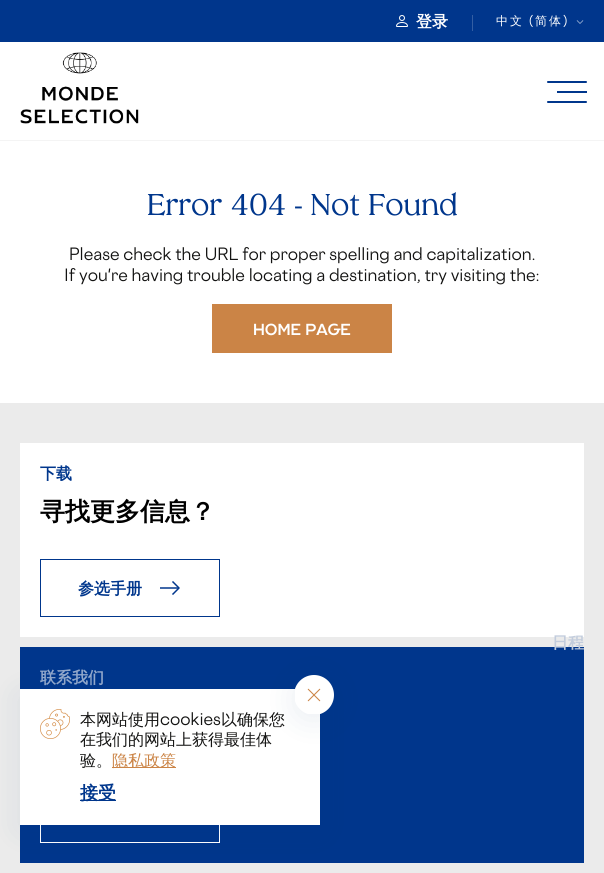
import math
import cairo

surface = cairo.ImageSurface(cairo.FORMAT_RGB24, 604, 873)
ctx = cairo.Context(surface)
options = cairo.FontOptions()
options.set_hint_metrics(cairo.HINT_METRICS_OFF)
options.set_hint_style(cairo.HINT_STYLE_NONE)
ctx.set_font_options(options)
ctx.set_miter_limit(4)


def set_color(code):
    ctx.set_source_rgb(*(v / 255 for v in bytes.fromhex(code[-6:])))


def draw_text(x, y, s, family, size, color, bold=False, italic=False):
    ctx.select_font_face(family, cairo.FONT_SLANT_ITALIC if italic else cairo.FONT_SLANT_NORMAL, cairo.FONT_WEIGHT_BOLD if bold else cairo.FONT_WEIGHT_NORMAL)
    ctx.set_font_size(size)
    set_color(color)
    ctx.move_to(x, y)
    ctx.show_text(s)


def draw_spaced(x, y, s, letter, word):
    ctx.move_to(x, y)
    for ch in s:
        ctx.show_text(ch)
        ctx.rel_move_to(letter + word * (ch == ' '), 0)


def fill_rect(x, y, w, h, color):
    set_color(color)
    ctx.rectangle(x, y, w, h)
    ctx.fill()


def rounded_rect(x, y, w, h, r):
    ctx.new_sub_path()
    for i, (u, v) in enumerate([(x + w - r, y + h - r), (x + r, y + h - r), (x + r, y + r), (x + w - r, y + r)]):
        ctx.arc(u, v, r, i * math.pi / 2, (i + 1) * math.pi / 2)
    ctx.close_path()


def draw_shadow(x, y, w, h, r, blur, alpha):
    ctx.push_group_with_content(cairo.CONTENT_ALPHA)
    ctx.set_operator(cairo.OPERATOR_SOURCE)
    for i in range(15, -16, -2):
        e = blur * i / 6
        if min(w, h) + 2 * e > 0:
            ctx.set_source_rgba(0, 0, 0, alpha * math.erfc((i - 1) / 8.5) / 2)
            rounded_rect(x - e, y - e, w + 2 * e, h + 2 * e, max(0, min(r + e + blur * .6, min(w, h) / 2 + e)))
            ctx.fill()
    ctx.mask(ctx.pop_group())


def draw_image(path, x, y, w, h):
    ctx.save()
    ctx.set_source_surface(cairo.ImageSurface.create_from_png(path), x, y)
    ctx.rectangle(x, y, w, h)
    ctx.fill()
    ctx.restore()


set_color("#ffffff")
ctx.paint()
fill_rect(0, 140, 604, 1, "#f4f4f4")
fill_rect(0, 0, 604, 42, "#00368c")
draw_image("assets/img1.png", 396, 15, 12, 12)
draw_text(416, 27, "登录", "WenQuanYi Zen Hei", 16, "#ffffff", bold=True)
fill_rect(472, 15, 1, 16, "#335ea3")
ctx.select_font_face("WenQuanYi Zen Hei Medium")
ctx.set_font_size(12)
set_color("#ffffff")
draw_spaced(496, 25, "中文", 2, 0)
ctx.select_font_face("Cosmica")
draw_spaced(529, 25, "(", 2, 0)
ctx.select_font_face("WenQuanYi Zen Hei Medium")
draw_spaced(535, 25, "简体", 2, 0)
ctx.select_font_face("Cosmica")
draw_spaced(563, 25, ")", 2, 0)
draw_image("assets/img2.png", 576, 20, 8, 4)
draw_image("assets/img3.png", 20, 52, 119, 72)
fill_rect(557, 91, 30, 2, "#00368c")
rounded_rect(547, 81, 40, 2, 1)
ctx.fill()
rounded_rect(547, 101, 40, 2, 1)
ctx.fill()
fill_rect(0, 403, 604, 470, "#ebebeb")
fill_rect(20, 443, 564, 194, "#ffffff")
fill_rect(20, 647, 564, 216, "#00368c")
draw_text(552, 648, "日程", "WenQuanYi Zen Hei", 16, "#c2ccdc", bold=True)
draw_text(147, 215, "Error 404 - Not Found", "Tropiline", 30, "#00368c")
draw_text(69, 260, "Please check the URL for proper spelling and capitalization.", "Cosmica", 16, "#131312")
draw_text(64, 281, "If you're having trouble locating a destination, try visiting the:", "Cosmica", 16, "#131312")
fill_rect(212, 304, 180, 49, "#cb8446")
draw_text(253, 335, "HOME PAGE", "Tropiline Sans", 16, "#ffffff", bold=True)
draw_text(40, 479, "下载", "WenQuanYi Zen Hei", 16, "#00368c", bold=True)
draw_text(40, 520, "寻找更多信息？", "WenQuanYi Zen Hei", 25, "#000000", bold=True)
ctx.rectangle(40.5, 559.5, 179, 57)
set_color("#00368c")
ctx.set_line_width(1)
ctx.stroke()
draw_text(78, 594, "参选手册", "WenQuanYi Zen Hei", 16, "#00368c", bold=True)
fill_rect(160, 587, 19, 2, "#4068a9")
ctx.new_path()
ctx.move_to(173, 582)
ctx.line_to(179, 588)
ctx.line_to(173, 594)
set_color("#00368c")
ctx.set_line_width(1.5)
ctx.set_line_cap(cairo.LINE_CAP_SQUARE)
ctx.set_line_join(cairo.LINE_JOIN_ROUND)
ctx.stroke()
draw_text(40, 683, "联系我们", "WenQuanYi Zen Hei", 16, "#93a9cc", bold=True)
ctx.rectangle(40.5, 793.5, 179, 49)
set_color("#ffffff")
ctx.set_line_width(1)
ctx.set_line_cap(cairo.LINE_CAP_BUTT)
ctx.set_line_join(cairo.LINE_JOIN_MITER)
ctx.stroke()
set_color("#003063")
draw_shadow(20, 694, 300, 136, 0, 16, 0.08)
fill_rect(20, 689, 300, 136, "#ffffff")
draw_image("assets/img4.png", 40, 709, 30, 30)
draw_text(80, 725, "本网站使用", "WenQuanYi Zen Hei Medium", 16, "#131312")
draw_text(160, 725, "cookies", "Cosmica", 16, "#131312")
draw_text(221, 725, "以确保您", "WenQuanYi Zen Hei Medium", 16, "#131312")
draw_text(80, 745, "在我们的网站上获得最佳体", "WenQuanYi Zen Hei Medium", 16, "#131312")
draw_text(80, 766, "验。", "WenQuanYi Zen Hei Medium", 16, "#131312")
fill_rect(112, 767, 64, 1, "#cb8446")
draw_text(112, 766, "隐私政策", "WenQuanYi Zen Hei Medium", 16, "#cb8446")
fill_rect(80, 800, 36, 1, "#00368c")
draw_text(80, 799, "接受", "WenQuanYi Zen Hei", 18, "#00368c", bold=True)
set_color("#003063")
draw_shadow(294, 680, 40, 40, 20, 16, 0.08)
draw_image("assets/img5.png", 295, 675, 39, 39)
surface.write_to_png("output.png")
